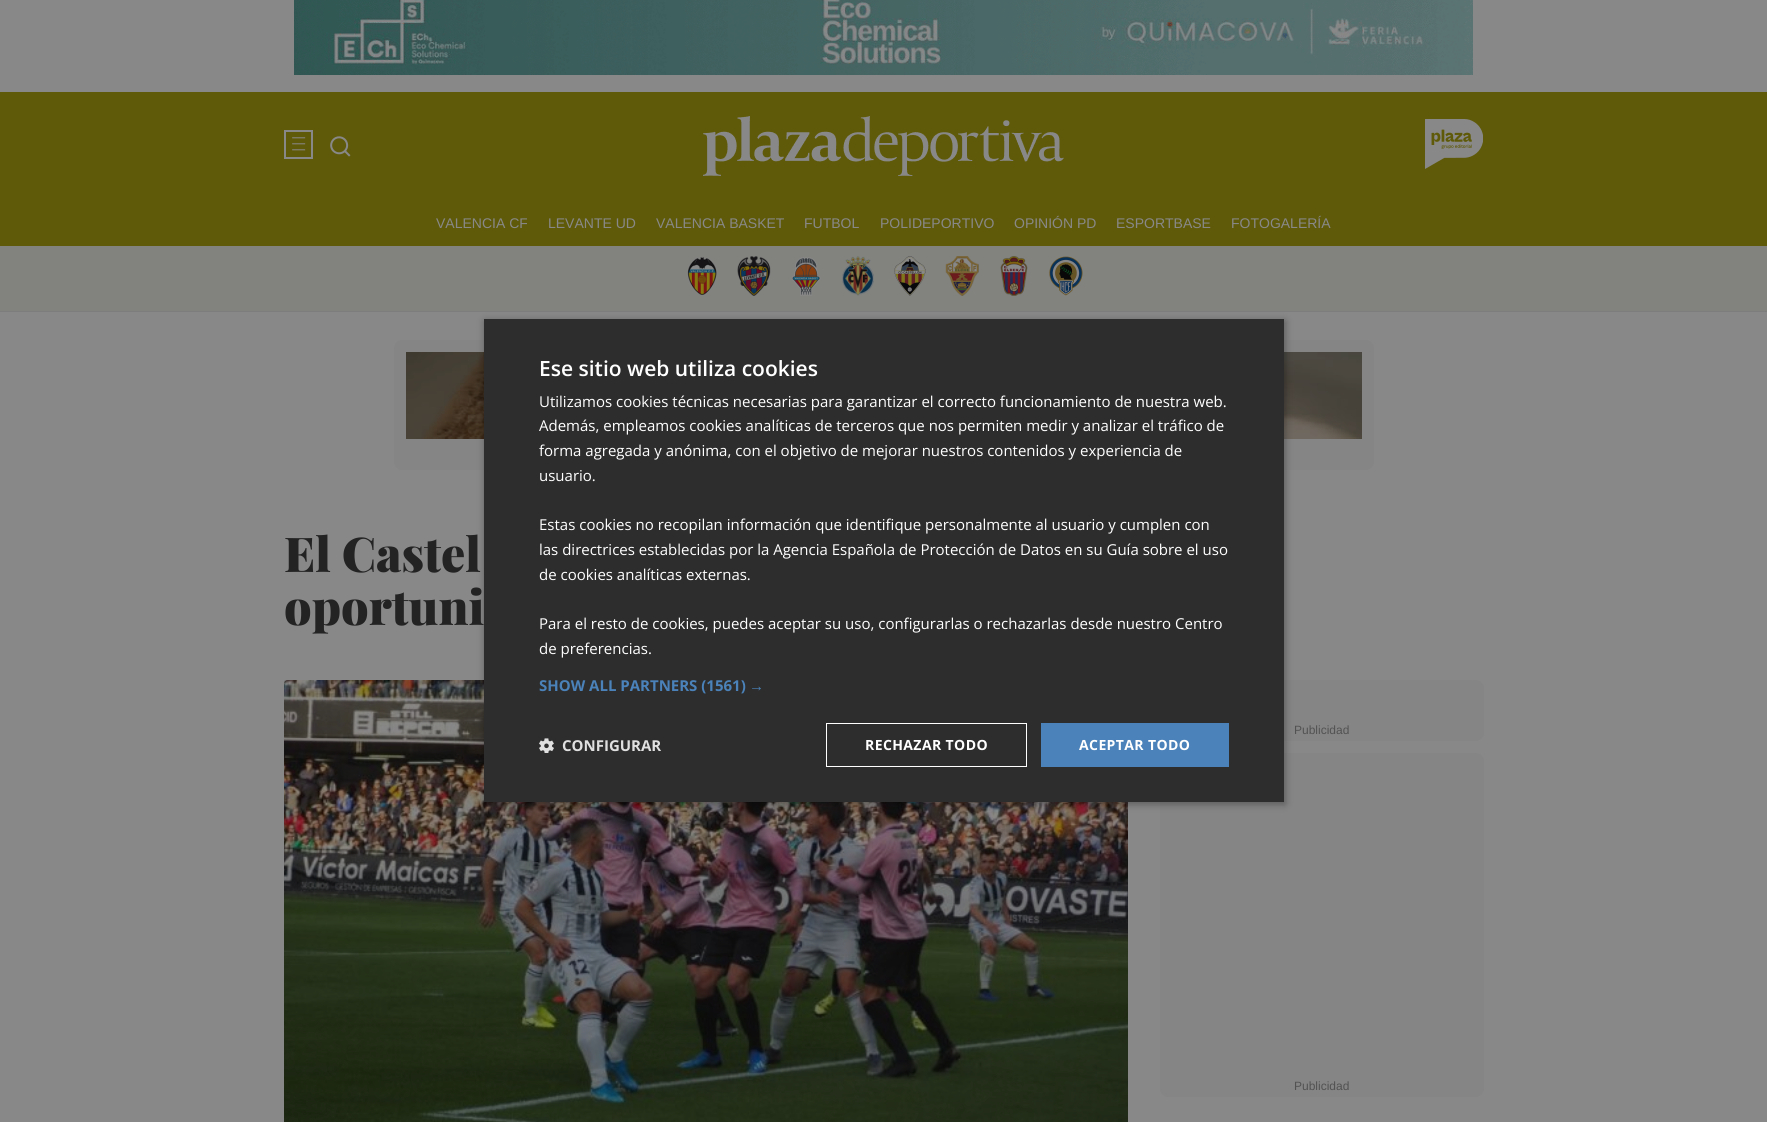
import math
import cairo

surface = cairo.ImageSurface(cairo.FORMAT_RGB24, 1767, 1122)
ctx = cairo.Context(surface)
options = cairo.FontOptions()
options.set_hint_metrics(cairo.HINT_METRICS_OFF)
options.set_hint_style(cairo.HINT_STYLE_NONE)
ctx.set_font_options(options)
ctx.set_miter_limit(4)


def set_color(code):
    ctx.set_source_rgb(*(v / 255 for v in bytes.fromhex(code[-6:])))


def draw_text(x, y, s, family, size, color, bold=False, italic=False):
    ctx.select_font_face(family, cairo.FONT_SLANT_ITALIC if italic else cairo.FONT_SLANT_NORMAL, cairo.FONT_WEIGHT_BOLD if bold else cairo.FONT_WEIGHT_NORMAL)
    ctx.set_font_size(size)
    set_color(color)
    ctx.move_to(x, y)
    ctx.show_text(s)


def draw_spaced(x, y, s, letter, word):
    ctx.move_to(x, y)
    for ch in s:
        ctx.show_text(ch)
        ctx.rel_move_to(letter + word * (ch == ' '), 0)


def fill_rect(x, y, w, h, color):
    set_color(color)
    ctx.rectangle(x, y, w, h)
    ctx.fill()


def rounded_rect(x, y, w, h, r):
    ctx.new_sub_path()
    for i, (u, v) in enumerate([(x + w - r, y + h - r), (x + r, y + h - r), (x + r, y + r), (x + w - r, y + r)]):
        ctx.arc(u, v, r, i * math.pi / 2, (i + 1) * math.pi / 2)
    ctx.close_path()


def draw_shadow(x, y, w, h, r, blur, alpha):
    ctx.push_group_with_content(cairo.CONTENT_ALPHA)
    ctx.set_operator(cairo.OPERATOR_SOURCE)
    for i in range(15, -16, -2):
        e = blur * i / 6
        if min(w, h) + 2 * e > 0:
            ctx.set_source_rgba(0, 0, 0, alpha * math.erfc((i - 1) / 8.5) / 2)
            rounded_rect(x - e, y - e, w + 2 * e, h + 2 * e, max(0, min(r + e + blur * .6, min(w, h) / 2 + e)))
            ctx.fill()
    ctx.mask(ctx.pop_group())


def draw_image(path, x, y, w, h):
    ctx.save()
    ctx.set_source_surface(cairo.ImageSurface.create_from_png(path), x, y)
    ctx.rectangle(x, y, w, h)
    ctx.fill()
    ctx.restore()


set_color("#888888")
ctx.paint()
draw_image("assets/img1.png", 294, 0, 1179, 75)
fill_rect(0, 92, 1767, 154, "#5f5a09")
fill_rect(0, 311, 1767, 1, "#7d7d7d")
draw_image("assets/img2.png", 284, 130, 29, 29)
draw_image("assets/img3.png", 330, 136, 21, 21)
draw_image("assets/img4.png", 703, 116, 361, 60)
draw_image("assets/img5.png", 1425, 119, 58, 50)
draw_text(436, 228, "VALENCIA CF", "Liberation Sans", 14, "#888888")
draw_text(548, 228, "LEVANTE UD", "Liberation Sans", 14, "#888888")
draw_text(656, 228, "VALENCIA BASKET", "Liberation Sans", 14, "#888888")
draw_text(804, 228, "FUTBOL", "Liberation Sans", 14, "#888888")
draw_text(880, 228, "POLIDEPORTIVO", "Liberation Sans", 14, "#888888")
draw_text(1014, 228, "OPINIÓN PD", "Liberation Sans", 14, "#888888")
draw_text(1116, 228, "ESPORTBASE", "Liberation Sans", 14, "#888888")
draw_text(1231, 228, "FOTOGALERÍA", "Liberation Sans", 14, "#888888")
fill_rect(0, 246, 1767, 65, "#82827f")
draw_image("assets/img6.png", 687, 257, 30, 39)
draw_image("assets/img7.png", 737, 256, 34, 40)
draw_image("assets/img8.png", 791, 257, 30, 39)
draw_image("assets/img9.png", 842, 256, 32, 40)
draw_image("assets/img10.png", 894, 256, 32, 40)
draw_image("assets/img11.png", 945, 256, 34, 40)
draw_image("assets/img12.png", 1000, 256, 28, 40)
draw_image("assets/img13.png", 1049, 256, 34, 40)
set_color("#868585")
rounded_rect(394, 340, 980, 130, 8)
ctx.fill()
draw_image("assets/img15.png", 406, 352, 956, 87)
fill_rect(284, 680, 4, 4, "#818181")
draw_image("assets/img16.png", 284, 680, 844, 442)
set_color("#868585")
rounded_rect(1160, 680, 324, 61, 8)
ctx.fill()
rounded_rect(1160, 753, 324, 344, 8)
ctx.fill()
set_color("#000000")
draw_shadow(485, 321, 800, 483, 0, 4, 0.35)
fill_rect(484, 319, 800, 483, "#2d2d2d")
draw_text(539, 376, "Ese sitio web utiliza cookies", "Open Sans SemiBold", 21, "#ffffff")
draw_text(539, 407, "Utilizamos cookies técnicas necesarias para garantizar el correcto funcionamiento de nuestra web.", "Open Sans", 15, "#ffffff")
draw_text(539, 431, "Además, empleamos cookies analíticas de terceros que nos permiten medir y analizar el tráfico de", "Open Sans", 15, "#ffffff")
draw_text(539, 456, "forma agregada y anónima, con el objetivo de mejorar nuestros contenidos y experiencia de", "Open Sans", 15, "#ffffff")
draw_text(539, 481, "usuario.", "Open Sans", 15, "#ffffff")
draw_text(539, 530, "Estas cookies no recopilan información que identifique personalmente al usuario y cumplen con", "Open Sans", 15, "#ffffff")
draw_text(539, 555, "las directrices establecidas por la Agencia Española de Protección de Datos en su Guía sobre el uso", "Open Sans", 15, "#ffffff")
draw_text(539, 580, "de cookies analíticas externas.", "Open Sans", 15, "#ffffff")
draw_text(539, 629, "Para el resto de cookies, puedes aceptar su uso, configurarlas o rechazarlas desde nuestro Centro", "Open Sans", 15, "#ffffff")
draw_text(539, 654, "de preferencias.", "Open Sans", 15, "#ffffff")
draw_text(539, 691, "SHOW ALL PARTNERS (1561)", "Open Sans", 15, "#4a82b9", bold=True)
draw_text(749, 691, "→", "Liberation Sans", 15, "#4a82b9", bold=True)
draw_image("assets/img14.png", 539, 738, 15, 15)
draw_text(562, 751, "CONFIGURAR", "Open Sans", 15, "#e0e0e0", bold=True)
ctx.rectangle(826.5, 723.5, 200, 43)
set_color("#ffffff")
ctx.set_line_width(1)
ctx.stroke()
ctx.set_font_size(14)
draw_spaced(865, 750, "RECHAZAR TODO", 0.4, 0)
fill_rect(1041, 723, 188, 44, "#4a82b9")
set_color("#ffffff")
draw_spaced(1079, 750, "ACEPTAR TODO", 0.4, 0)
draw_text(284, 572, "El Castel", "Playfair Display Black", 48, "#232323")
draw_text(284, 625, "oportuni", "Playfair Display Black", 48, "#232323")
draw_text(1294, 734, "Publicidad", "Liberation Sans", 12, "#525252")
draw_text(1294, 1090, "Publicidad", "Liberation Sans", 12, "#525252")
surface.write_to_png("output.png")
